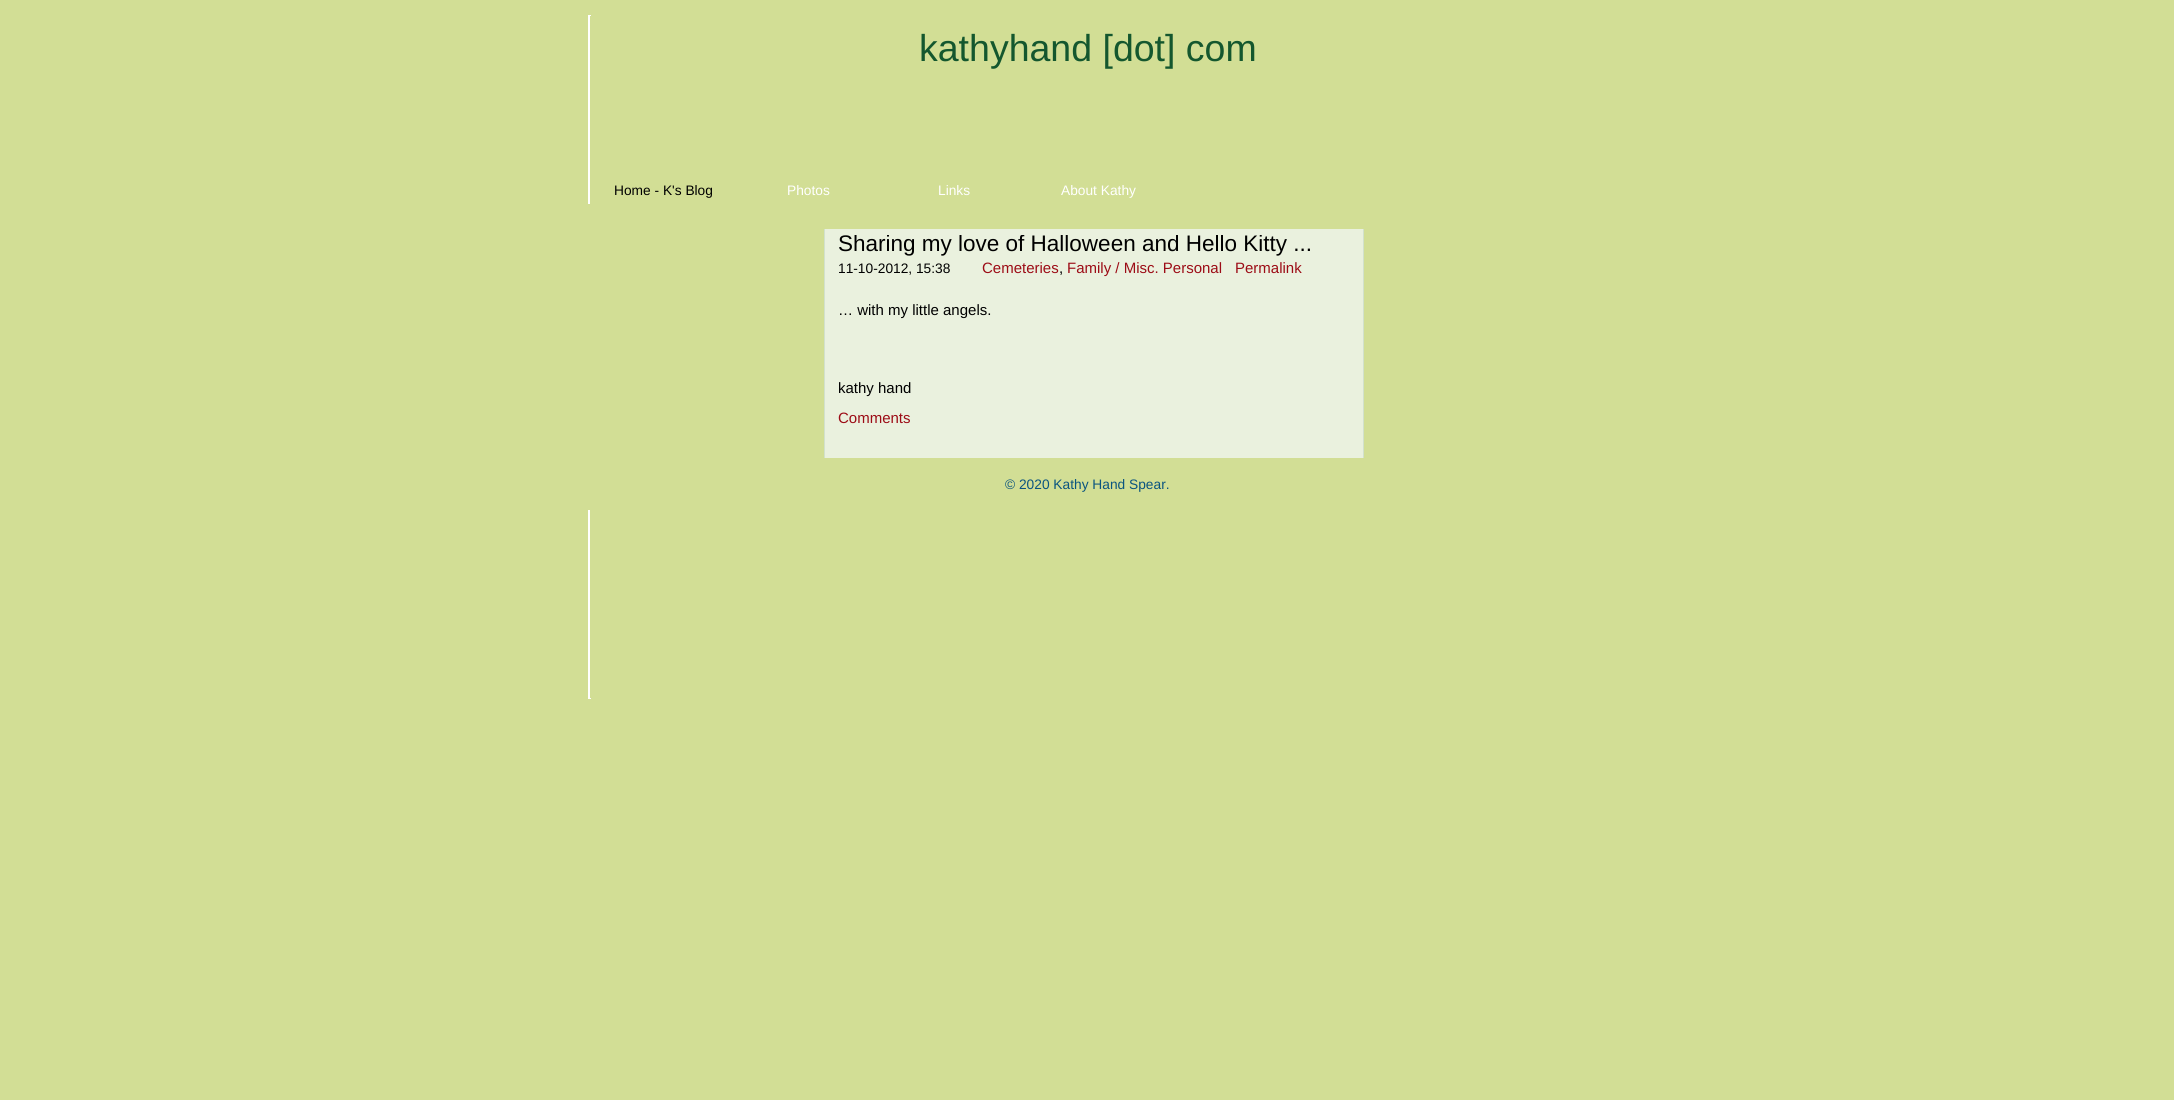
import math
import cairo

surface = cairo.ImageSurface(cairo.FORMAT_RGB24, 2174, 1100)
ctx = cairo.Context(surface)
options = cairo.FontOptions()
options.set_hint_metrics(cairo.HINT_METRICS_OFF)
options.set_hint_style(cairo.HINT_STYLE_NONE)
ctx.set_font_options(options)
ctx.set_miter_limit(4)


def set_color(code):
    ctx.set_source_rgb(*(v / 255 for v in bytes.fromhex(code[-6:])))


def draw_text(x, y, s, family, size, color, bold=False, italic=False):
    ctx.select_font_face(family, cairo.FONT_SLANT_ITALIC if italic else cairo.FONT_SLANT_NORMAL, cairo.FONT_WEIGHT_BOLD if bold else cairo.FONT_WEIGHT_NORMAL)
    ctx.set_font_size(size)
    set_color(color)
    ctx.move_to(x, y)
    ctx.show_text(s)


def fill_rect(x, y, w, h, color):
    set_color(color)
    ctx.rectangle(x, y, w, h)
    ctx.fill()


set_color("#d2de95")
ctx.paint()
fill_rect(588, 15, 3, 1, "#ffffff")
fill_rect(588, 15, 2, 189, "#ffffff")
draw_text(919, 61, "kathyhand [dot] com", "Liberation Sans", 37.5, "#14572e")
draw_text(614, 195, "Home - K's Blog", "Liberation Sans", 13.75, "#000000")
draw_text(787, 195, "Photos", "Liberation Sans", 13.75, "#ffffff")
draw_text(938, 195, "Links", "Liberation Sans", 13.75, "#ffffff")
draw_text(1061, 195, "About Kathy", "Liberation Sans", 13.75, "#ffffff")
fill_rect(825, 229, 538, 229, "#eaf1de")
fill_rect(1363, 229, 1, 229, "#d2e1cc")
fill_rect(824, 229, 1, 229, "#d2e1cc")
ctx.save()
ctx.rectangle(838, 235, 512, 216)
ctx.clip()
draw_text(838, 251, "Sharing my love of Halloween and Hello Kitty ...", "Liberation Sans", 22.5, "#000000")
ctx.restore()
draw_text(838, 273, "11-10-2012, 15:38", "Liberation Sans", 13.75, "#000000")
draw_text(982, 273, "Cemeteries", "Liberation Sans", 15, "#9c0c16")
draw_text(1059, 273, ",", "Liberation Sans", 15, "#000000")
draw_text(1067, 273, "Family / Misc. Personal", "Liberation Sans", 15, "#9c0c16")
draw_text(1235, 273, "Permalink", "Liberation Sans", 15, "#9c0c16")
draw_text(838, 315, "… with my little angels.", "Liberation Sans", 15, "#000000")
draw_text(838, 393, "kathy hand", "Liberation Sans", 15, "#000000")
draw_text(838, 423, "Comments", "Liberation Sans", 15, "#9c0c16")
draw_text(1005, 489, "© 2020 Kathy Hand Spear.", "Liberation Sans", 13.75, "#0a547f")
fill_rect(589, 510, 1, 189, "#ffffff")
fill_rect(588, 698, 3, 1, "#ffffff")
fill_rect(588, 510, 1, 189, "#ffffff")
surface.write_to_png("output.png")
